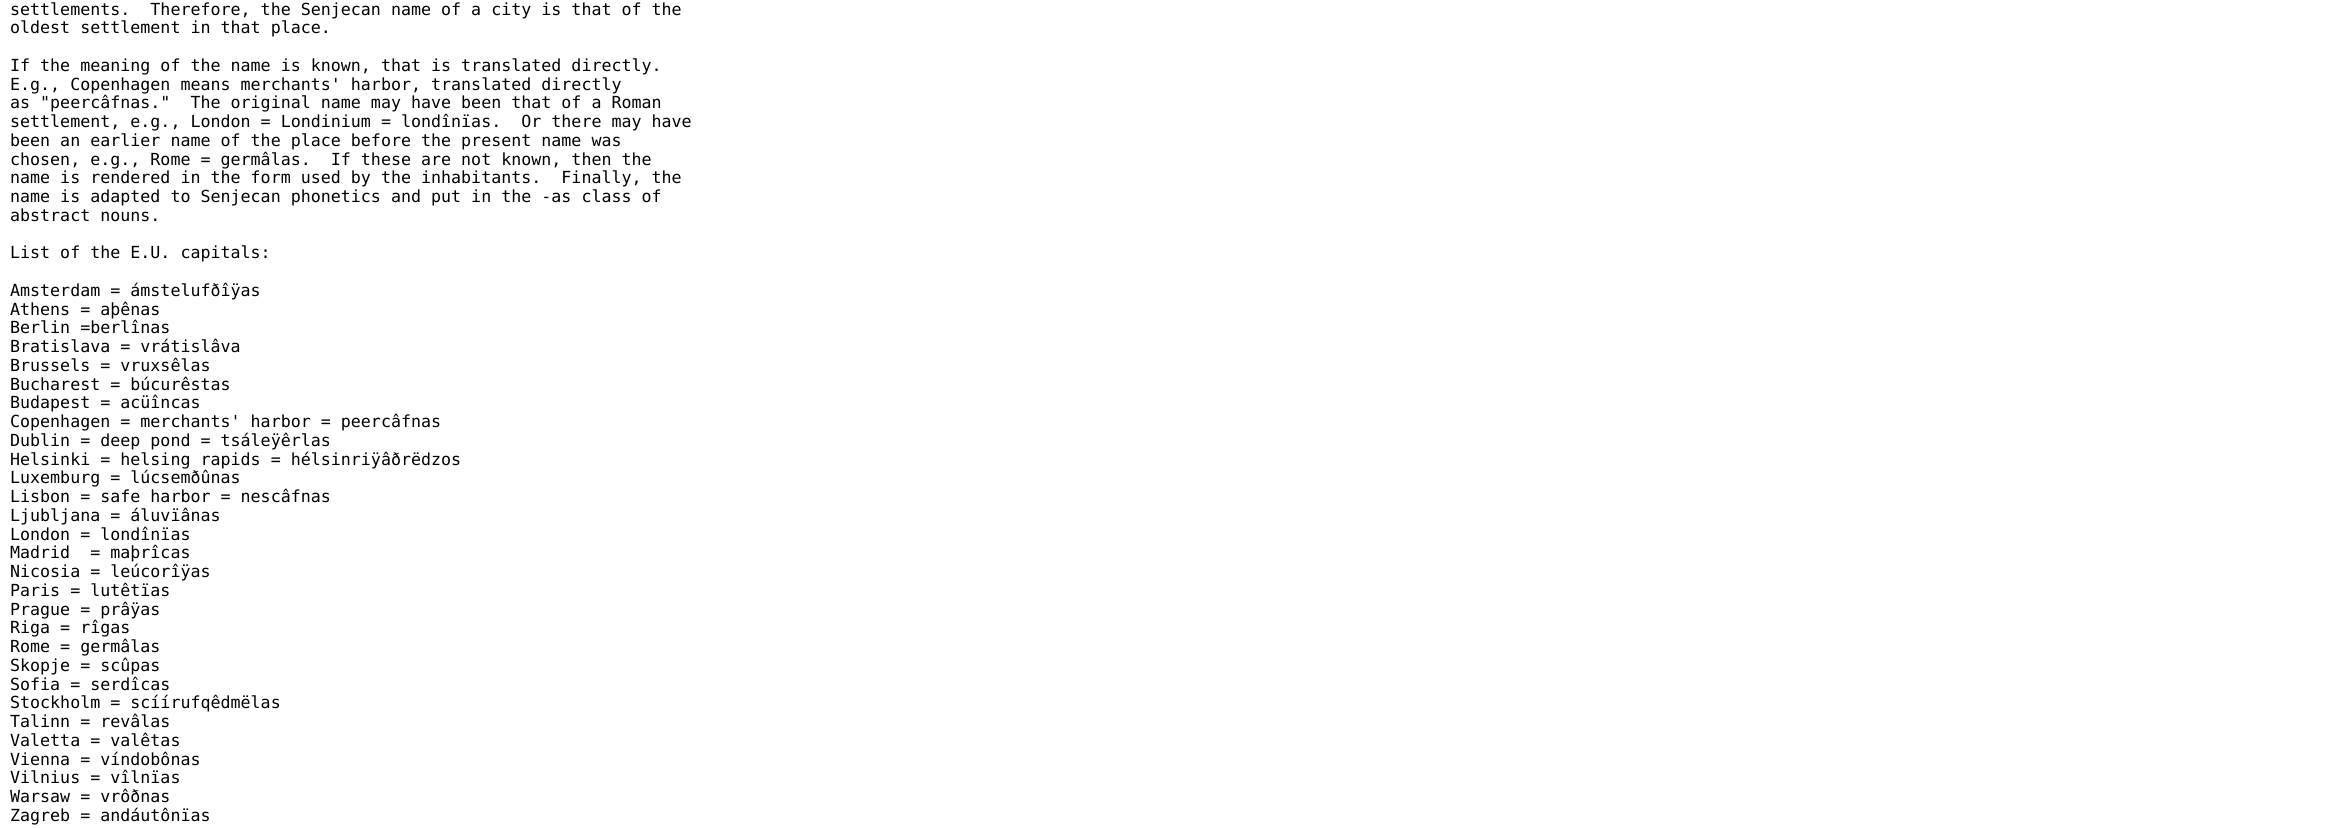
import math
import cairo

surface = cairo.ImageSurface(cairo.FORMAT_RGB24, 2335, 828)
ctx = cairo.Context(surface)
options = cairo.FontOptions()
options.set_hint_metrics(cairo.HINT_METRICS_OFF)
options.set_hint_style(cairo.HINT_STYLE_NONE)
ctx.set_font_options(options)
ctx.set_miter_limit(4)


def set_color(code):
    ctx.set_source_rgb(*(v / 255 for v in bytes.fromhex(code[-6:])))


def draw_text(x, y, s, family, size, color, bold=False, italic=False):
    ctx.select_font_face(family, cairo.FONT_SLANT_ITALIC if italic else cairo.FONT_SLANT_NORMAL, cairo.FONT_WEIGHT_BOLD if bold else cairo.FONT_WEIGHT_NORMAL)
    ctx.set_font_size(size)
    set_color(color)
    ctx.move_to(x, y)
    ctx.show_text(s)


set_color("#ffffff")
ctx.paint()
draw_text(10, 15, "settlements.  Therefore, the Senjecan name of a city is that of the", "DejaVu Sans Mono", 16.65, "#000000")
draw_text(10, 33, "oldest settlement in that place.", "DejaVu Sans Mono", 16.65, "#000000")
draw_text(10, 71, "If the meaning of the name is known, that is translated directly.", "DejaVu Sans Mono", 16.65, "#000000")
draw_text(10, 90, "E.g., Copenhagen means merchants' harbor, translated directly", "DejaVu Sans Mono", 16.65, "#000000")
draw_text(10, 108, "as \"peercâfnas.\"  The original name may have been that of a Roman", "DejaVu Sans Mono", 16.65, "#000000")
draw_text(10, 127, "settlement, e.g., London = Londinium = londînïas.  Or there may have", "DejaVu Sans Mono", 16.65, "#000000")
draw_text(10, 146, "been an earlier name of the place before the present name was", "DejaVu Sans Mono", 16.65, "#000000")
draw_text(10, 165, "chosen, e.g., Rome = germâlas.  If these are not known, then the", "DejaVu Sans Mono", 16.65, "#000000")
draw_text(10, 183, "name is rendered in the form used by the inhabitants.  Finally, the", "DejaVu Sans Mono", 16.65, "#000000")
draw_text(10, 202, "name is adapted to Senjecan phonetics and put in the -as class of", "DejaVu Sans Mono", 16.65, "#000000")
draw_text(10, 221, "abstract nouns.", "DejaVu Sans Mono", 16.65, "#000000")
draw_text(10, 258, "List of the E.U. capitals:", "DejaVu Sans Mono", 16.65, "#000000")
draw_text(10, 296, "Amsterdam = ámstelufðîÿas", "DejaVu Sans Mono", 16.65, "#000000")
draw_text(10, 315, "Athens = aþênas", "DejaVu Sans Mono", 16.65, "#000000")
draw_text(10, 333, "Berlin =berlînas", "DejaVu Sans Mono", 16.65, "#000000")
draw_text(10, 352, "Bratislava = vrátislâva", "DejaVu Sans Mono", 16.65, "#000000")
draw_text(10, 371, "Brussels = vruxsêlas", "DejaVu Sans Mono", 16.65, "#000000")
draw_text(10, 390, "Bucharest = búcurêstas", "DejaVu Sans Mono", 16.65, "#000000")
draw_text(10, 408, "Budapest = acüîncas", "DejaVu Sans Mono", 16.65, "#000000")
draw_text(10, 427, "Copenhagen = merchants' harbor = peercâfnas", "DejaVu Sans Mono", 16.65, "#000000")
draw_text(10, 446, "Dublin = deep pond = tsáleÿêrlas", "DejaVu Sans Mono", 16.65, "#000000")
draw_text(10, 465, "Helsinki = helsing rapids = hélsinriÿâðrëdzos", "DejaVu Sans Mono", 16.65, "#000000")
draw_text(10, 483, "Luxemburg = lúcsemðûnas", "DejaVu Sans Mono", 16.65, "#000000")
draw_text(10, 502, "Lisbon = safe harbor = nescâfnas", "DejaVu Sans Mono", 16.65, "#000000")
draw_text(10, 521, "Ljubljana = áluvïânas", "DejaVu Sans Mono", 16.65, "#000000")
draw_text(10, 540, "London = londînïas", "DejaVu Sans Mono", 16.65, "#000000")
draw_text(10, 558, "Madrid  = maþrîcas", "DejaVu Sans Mono", 16.65, "#000000")
draw_text(10, 577, "Nicosia = leúcorîÿas", "DejaVu Sans Mono", 16.65, "#000000")
draw_text(10, 596, "Paris = lutêtïas", "DejaVu Sans Mono", 16.65, "#000000")
draw_text(10, 615, "Prague = prâÿas", "DejaVu Sans Mono", 16.65, "#000000")
draw_text(10, 633, "Riga = rîgas", "DejaVu Sans Mono", 16.65, "#000000")
draw_text(10, 652, "Rome = germâlas", "DejaVu Sans Mono", 16.65, "#000000")
draw_text(10, 671, "Skopje = scûpas", "DejaVu Sans Mono", 16.65, "#000000")
draw_text(10, 690, "Sofia = serdîcas", "DejaVu Sans Mono", 16.65, "#000000")
draw_text(10, 708, "Stockholm = scíírufqêdmëlas", "DejaVu Sans Mono", 16.65, "#000000")
draw_text(10, 727, "Talinn = revâlas", "DejaVu Sans Mono", 16.65, "#000000")
draw_text(10, 746, "Valetta = valêtas", "DejaVu Sans Mono", 16.65, "#000000")
draw_text(10, 765, "Vienna = víndobônas", "DejaVu Sans Mono", 16.65, "#000000")
draw_text(10, 783, "Vilnius = vîlnïas", "DejaVu Sans Mono", 16.65, "#000000")
draw_text(10, 802, "Warsaw = vrôðnas", "DejaVu Sans Mono", 16.65, "#000000")
draw_text(10, 821, "Zagreb = andáutônïas", "DejaVu Sans Mono", 16.65, "#000000")
surface.write_to_png("output.png")
